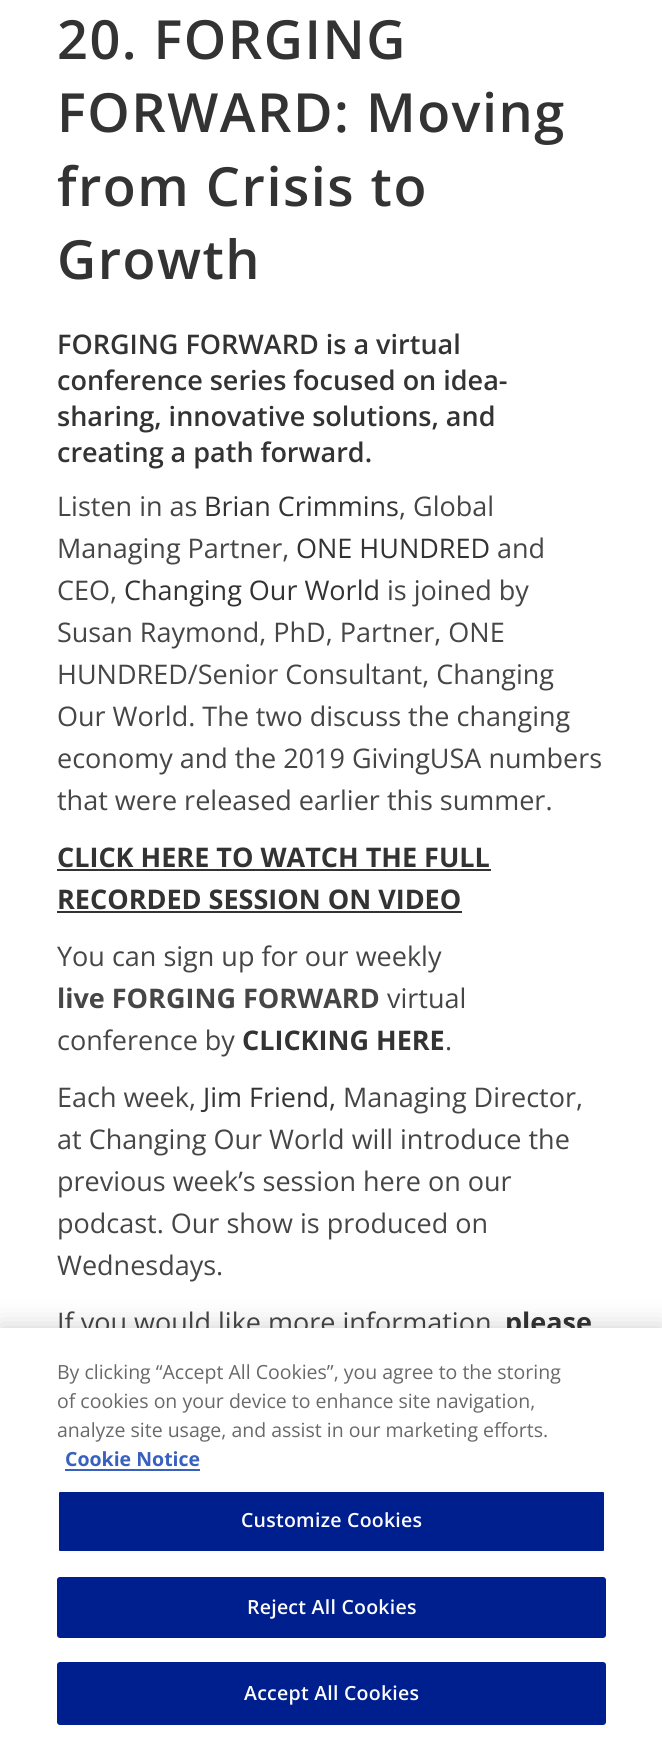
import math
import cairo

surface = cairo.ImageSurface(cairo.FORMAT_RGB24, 662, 1748)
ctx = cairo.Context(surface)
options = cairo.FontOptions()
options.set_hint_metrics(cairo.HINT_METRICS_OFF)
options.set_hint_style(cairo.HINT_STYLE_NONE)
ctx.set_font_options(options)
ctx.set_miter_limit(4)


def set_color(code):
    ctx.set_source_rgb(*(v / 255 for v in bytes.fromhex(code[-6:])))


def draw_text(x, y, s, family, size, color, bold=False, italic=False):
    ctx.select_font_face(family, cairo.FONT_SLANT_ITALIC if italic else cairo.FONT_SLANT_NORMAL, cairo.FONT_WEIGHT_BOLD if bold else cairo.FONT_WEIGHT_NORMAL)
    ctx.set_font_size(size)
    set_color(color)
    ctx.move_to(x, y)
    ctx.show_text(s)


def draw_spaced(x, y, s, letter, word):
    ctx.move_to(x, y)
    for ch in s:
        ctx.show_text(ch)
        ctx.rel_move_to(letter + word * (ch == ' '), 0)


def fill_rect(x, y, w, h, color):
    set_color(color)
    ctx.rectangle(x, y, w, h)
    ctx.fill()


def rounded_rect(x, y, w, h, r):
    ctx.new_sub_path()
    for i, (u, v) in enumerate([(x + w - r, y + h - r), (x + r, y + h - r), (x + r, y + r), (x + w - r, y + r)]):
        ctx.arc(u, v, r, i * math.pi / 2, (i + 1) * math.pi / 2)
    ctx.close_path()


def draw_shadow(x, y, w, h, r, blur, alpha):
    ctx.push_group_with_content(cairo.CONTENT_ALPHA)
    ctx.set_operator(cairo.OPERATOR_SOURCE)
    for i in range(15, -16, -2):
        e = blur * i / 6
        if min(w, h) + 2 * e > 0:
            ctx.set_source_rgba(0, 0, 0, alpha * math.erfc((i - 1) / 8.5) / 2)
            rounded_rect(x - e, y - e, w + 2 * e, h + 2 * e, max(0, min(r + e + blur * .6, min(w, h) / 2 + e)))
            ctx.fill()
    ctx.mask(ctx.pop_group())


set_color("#ffffff")
ctx.paint()
ctx.select_font_face("Open Sans SemiBold")
ctx.set_font_size(54)
set_color("#333333")
draw_spaced(57, 59, "20. FORGING", 1.5, 0)
draw_spaced(57, 132, "FORWARD: Moving", 1.5, 0)
draw_spaced(57, 206, "from Crisis to", 1.5, 0)
draw_spaced(57, 279, "Growth", 1.5, 0)
draw_text(57, 354, "FORGING FORWARD is a virtual", "Open Sans SemiBold", 27, "#333333")
draw_text(57, 390, "conference series focused on idea-", "Open Sans SemiBold", 27, "#333333")
draw_text(57, 426, "sharing, innovative solutions, and", "Open Sans SemiBold", 27, "#333333")
draw_text(57, 462, "creating a path forward.", "Open Sans SemiBold", 27, "#333333")
draw_text(57, 516, "Listen in as", "Open Sans", 27, "#464646")
draw_text(204, 516, "Brian Crimmins", "Open Sans", 27, "#333333")
draw_text(399, 516, ", Global", "Open Sans", 27, "#464646")
draw_text(57, 558, "Managing Partner,", "Open Sans", 27, "#464646")
draw_text(296, 558, "ONE HUNDRED", "Open Sans", 27, "#333333")
draw_text(497, 558, "and", "Open Sans", 27, "#464646")
draw_text(57, 600, "CEO,", "Open Sans", 27, "#464646")
draw_text(124, 600, "Changing Our World", "Open Sans", 27, "#333333")
draw_text(387, 600, "is joined by", "Open Sans", 27, "#464646")
draw_text(57, 642, "Susan Raymond, PhD, Partner, ONE", "Open Sans", 27, "#464646")
draw_text(57, 684, "HUNDRED/Senior Consultant, Changing", "Open Sans", 27, "#464646")
draw_text(57, 726, "Our World. The two discuss the changing", "Open Sans", 27, "#464646")
draw_text(57, 768, "economy and the 2019 GivingUSA numbers", "Open Sans", 27, "#464646")
draw_text(57, 810, "that were released earlier this summer.", "Open Sans", 27, "#464646")
draw_text(57, 867, "CLICK HERE TO WATCH THE FULL", "Open Sans", 27, "#333333", bold=True)
fill_rect(57, 869, 434, 2, "#333333")
draw_text(57, 909, "RECORDED SESSION ON VIDEO", "Open Sans", 27, "#333333", bold=True)
fill_rect(57, 911, 405, 2, "#333333")
draw_text(57, 966, "You can sign up for our weekly", "Open Sans", 27, "#464646")
draw_text(57, 1008, "live FORGING FORWARD", "Open Sans", 27, "#464646", bold=True)
draw_text(387, 1008, "virtual", "Open Sans", 27, "#464646")
draw_text(57, 1050, "conference by", "Open Sans", 27, "#464646")
draw_text(242, 1050, "CLICKING HERE", "Open Sans", 27, "#333333", bold=True)
draw_text(445, 1050, ".", "Open Sans", 27, "#464646")
draw_text(57, 1107, "Each week,", "Open Sans", 27, "#464646")
draw_text(203, 1107, "Jim Friend,", "Open Sans", 27, "#333333")
draw_text(343, 1107, "Managing Director,", "Open Sans", 27, "#464646")
draw_text(57, 1149, "at Changing Our World will introduce the", "Open Sans", 27, "#464646")
draw_text(57, 1191, "previous week’s session here on our", "Open Sans", 27, "#464646")
draw_text(57, 1233, "podcast. Our show is produced on", "Open Sans", 27, "#464646")
draw_text(57, 1275, "Wednesdays.", "Open Sans", 27, "#464646")
draw_text(57, 1332, "If you would like more information", "Open Sans", 27, "#464646")
draw_text(505, 1332, "please", "Open Sans", 27, "#333333", bold=True)
set_color("#000000")
draw_shadow(0, 1328, 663, 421, 0, 13.5, 0.2)
fill_rect(0, 1328, 662, 420, "#ffffff")
draw_text(57, 1379, "By clicking “Accept All Cookies”, you agree to the storing", "Open Sans", 19.5, "#696969")
draw_text(57, 1408, "of cookies on your device to enhance site navigation,", "Open Sans", 19.5, "#696969")
draw_text(57, 1437, "analyze site usage, and assist in our marketing efforts.", "Open Sans", 19.5, "#696969")
draw_text(65, 1466, "Cookie Notice", "Open Sans", 19.5, "#3860be", bold=True)
fill_rect(65, 1469, 135, 2, "#3860be")
set_color("#001f8e")
rounded_rect(58, 1491, 547, 61, 2)
ctx.fill_preserve()
set_color("#fcfcfc")
ctx.stroke()
ctx.select_font_face("Open Sans SemiBold")
draw_spaced(241, 1527, "Customize Cookies", 0.25, 0)
set_color("#001f8e")
rounded_rect(58, 1578, 547, 59, 2)
ctx.fill_preserve()
ctx.stroke()
set_color("#fcfcfc")
draw_spaced(247, 1614, "Reject All Cookies", 0.25, 0)
set_color("#001f8e")
rounded_rect(58, 1663, 547, 61, 2)
ctx.fill_preserve()
ctx.stroke()
set_color("#fcfcfc")
draw_spaced(244, 1700, "Accept All Cookies", 0.25, 0)
surface.write_to_png("output.png")
